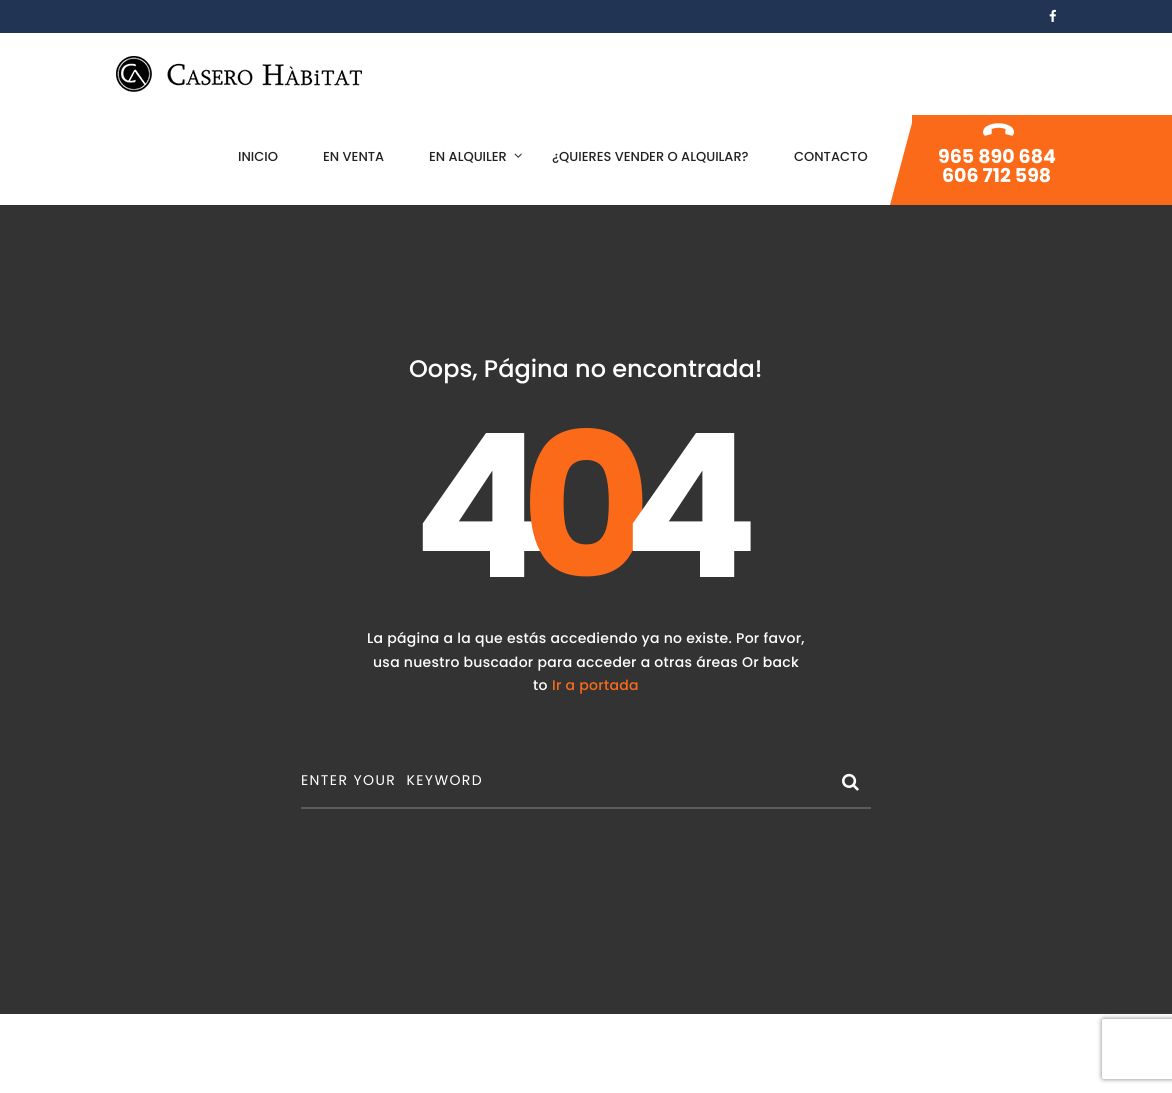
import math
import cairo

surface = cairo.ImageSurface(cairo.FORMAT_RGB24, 1172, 1093)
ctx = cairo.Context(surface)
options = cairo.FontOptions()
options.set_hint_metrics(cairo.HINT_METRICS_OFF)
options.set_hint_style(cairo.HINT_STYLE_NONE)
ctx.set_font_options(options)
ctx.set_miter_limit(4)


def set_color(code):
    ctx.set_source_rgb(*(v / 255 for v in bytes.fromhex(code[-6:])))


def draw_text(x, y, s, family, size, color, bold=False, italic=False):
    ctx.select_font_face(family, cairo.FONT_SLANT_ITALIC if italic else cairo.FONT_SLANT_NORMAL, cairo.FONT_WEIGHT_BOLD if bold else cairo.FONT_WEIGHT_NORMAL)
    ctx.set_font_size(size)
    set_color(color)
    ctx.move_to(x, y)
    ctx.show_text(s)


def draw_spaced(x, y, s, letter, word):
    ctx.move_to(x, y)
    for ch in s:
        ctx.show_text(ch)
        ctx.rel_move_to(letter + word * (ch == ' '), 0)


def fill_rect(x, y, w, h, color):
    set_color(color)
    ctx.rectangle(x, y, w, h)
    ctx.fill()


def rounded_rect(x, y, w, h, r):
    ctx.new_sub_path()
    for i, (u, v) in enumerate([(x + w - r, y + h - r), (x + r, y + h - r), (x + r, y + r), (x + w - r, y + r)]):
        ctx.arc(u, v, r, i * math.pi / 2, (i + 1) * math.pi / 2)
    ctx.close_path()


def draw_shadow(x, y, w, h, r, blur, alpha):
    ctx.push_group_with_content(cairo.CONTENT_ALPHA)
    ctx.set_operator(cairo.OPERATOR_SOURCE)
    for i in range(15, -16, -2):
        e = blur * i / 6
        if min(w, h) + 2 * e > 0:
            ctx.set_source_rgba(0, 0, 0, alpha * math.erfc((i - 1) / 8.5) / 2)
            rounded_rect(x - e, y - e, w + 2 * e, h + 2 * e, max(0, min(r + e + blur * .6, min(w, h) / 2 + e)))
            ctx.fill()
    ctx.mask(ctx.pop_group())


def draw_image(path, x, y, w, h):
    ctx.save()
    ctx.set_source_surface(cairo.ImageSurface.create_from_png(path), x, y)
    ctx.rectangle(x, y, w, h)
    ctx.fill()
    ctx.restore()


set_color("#ffffff")
ctx.paint()
fill_rect(0, 0, 1172, 33, "#213454")
draw_image("assets/img1.png", 1049, 9, 7, 13)
draw_image("assets/img2.png", 116, 56, 246, 36)
draw_text(238, 161, "INICIO", "Poppins Medium", 13, "#222222")
draw_text(323, 161, "EN VENTA", "Poppins Medium", 13, "#222222")
draw_text(429, 161, "EN ALQUILER", "Poppins Medium", 13, "#222222")
draw_image("assets/img3.png", 514, 153, 8, 5)
draw_text(552, 161, "¿QUIERES VENDER O ALQUILAR?", "Poppins Medium", 13, "#222222")
draw_text(794, 161, "CONTACTO", "Poppins Medium", 13, "#222222")
fill_rect(912, 115, 260, 90, "#fb6a19")
ctx.new_path()
ctx.move_to(912, 205)
ctx.line_to(890, 205)
ctx.line_to(912, 123)
ctx.close_path()
ctx.fill()
draw_image("assets/img4.png", 983, 123, 32, 13)
draw_text(938, 163, "965 890 684", "Poppins", 19, "#ffffff", bold=True)
draw_text(942, 182, "606 712 598", "Poppins", 19, "#ffffff", bold=True)
fill_rect(0, 205, 1172, 809, "#333333")
draw_text(409, 377, "Oops, Página no encontrada!", "Poppins Medium", 24, "#ffffff")
ctx.select_font_face("Poppins", cairo.FONT_SLANT_NORMAL, cairo.FONT_WEIGHT_BOLD)
ctx.set_font_size(200)
draw_spaced(413, 577, "4", -28, 0)
set_color("#fb6a19")
draw_spaced(521, 577, "0", -28, 0)
set_color("#ffffff")
draw_spaced(623, 577, "4", -28, 0)
ctx.select_font_face("Poppins Medium")
ctx.set_font_size(14)
draw_spaced(367, 643, "La página a la que estás accediendo ya no existe. Por favor,", 0.28, 0)
draw_spaced(373, 667, "usa nuestro buscador para acceder a otras áreas Or back", 0.28, 0)
draw_spaced(533, 690, "to", 0.28, 0)
set_color("#fb6a19")
draw_spaced(552, 690, "Ir a portada", 0.28, 0)
fill_rect(301, 807, 570, 2, "#5c5c5c")
ctx.select_font_face("Poppins")
set_color("#ffffff")
draw_spaced(301, 785, "ENTER YOUR  KEYWORD", 1.4, 0)
draw_image("assets/img5.png", 842, 773, 17, 18)
ctx.save()
ctx.set_fill_rule(cairo.FILL_RULE_EVEN_ODD)
ctx.new_path()
ctx.move_to(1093, 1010)
ctx.line_to(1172, 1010)
ctx.line_to(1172, 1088)
ctx.line_to(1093, 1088)
ctx.close_path()
ctx.move_to(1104, 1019)
ctx.line_to(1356, 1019)
ctx.curve_to(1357, 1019, 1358, 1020, 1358, 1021)
ctx.line_to(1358, 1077)
ctx.curve_to(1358, 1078, 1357, 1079, 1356, 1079)
ctx.line_to(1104, 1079)
ctx.curve_to(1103, 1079, 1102, 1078, 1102, 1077)
ctx.line_to(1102, 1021)
ctx.curve_to(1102, 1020, 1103, 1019, 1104, 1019)
ctx.close_path()
ctx.clip()
set_color("#808080")
draw_shadow(1102, 1019, 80, 60, 2, 2.5, 1)
ctx.restore()
surface.write_to_png("output.png")
